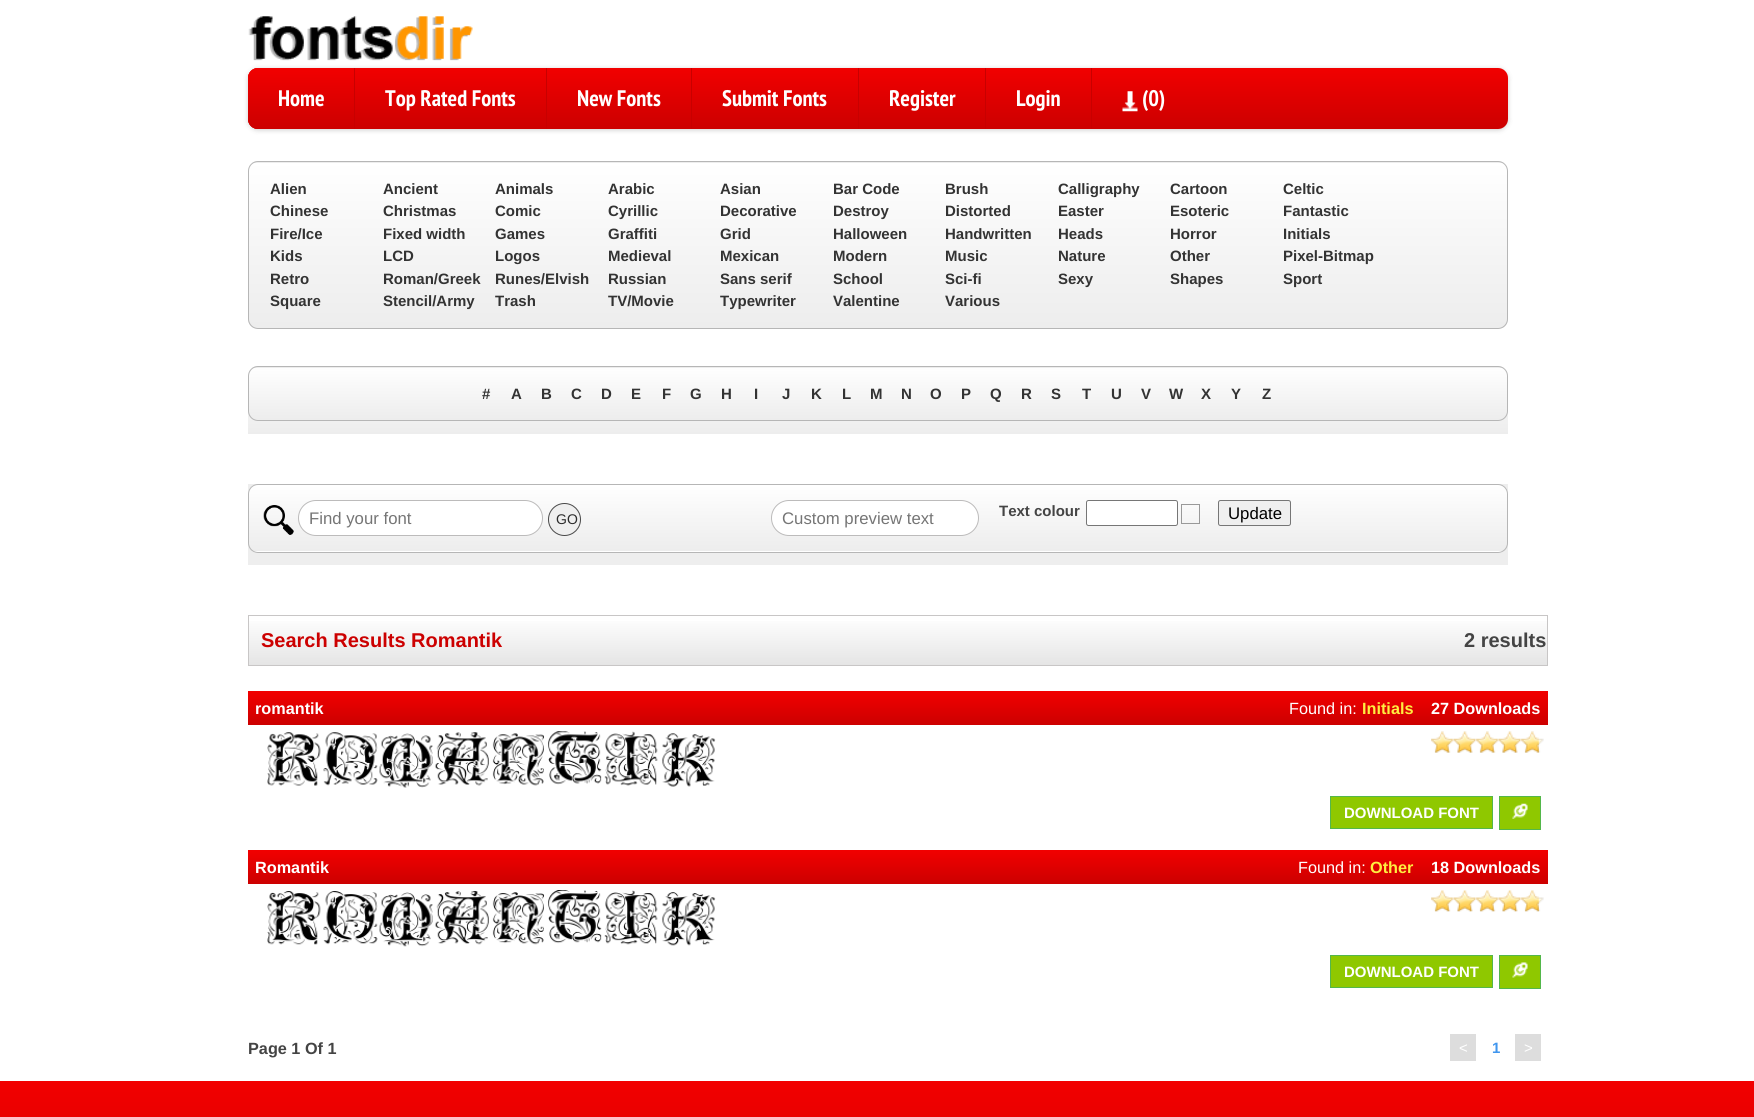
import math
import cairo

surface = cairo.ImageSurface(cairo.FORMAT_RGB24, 1754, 1117)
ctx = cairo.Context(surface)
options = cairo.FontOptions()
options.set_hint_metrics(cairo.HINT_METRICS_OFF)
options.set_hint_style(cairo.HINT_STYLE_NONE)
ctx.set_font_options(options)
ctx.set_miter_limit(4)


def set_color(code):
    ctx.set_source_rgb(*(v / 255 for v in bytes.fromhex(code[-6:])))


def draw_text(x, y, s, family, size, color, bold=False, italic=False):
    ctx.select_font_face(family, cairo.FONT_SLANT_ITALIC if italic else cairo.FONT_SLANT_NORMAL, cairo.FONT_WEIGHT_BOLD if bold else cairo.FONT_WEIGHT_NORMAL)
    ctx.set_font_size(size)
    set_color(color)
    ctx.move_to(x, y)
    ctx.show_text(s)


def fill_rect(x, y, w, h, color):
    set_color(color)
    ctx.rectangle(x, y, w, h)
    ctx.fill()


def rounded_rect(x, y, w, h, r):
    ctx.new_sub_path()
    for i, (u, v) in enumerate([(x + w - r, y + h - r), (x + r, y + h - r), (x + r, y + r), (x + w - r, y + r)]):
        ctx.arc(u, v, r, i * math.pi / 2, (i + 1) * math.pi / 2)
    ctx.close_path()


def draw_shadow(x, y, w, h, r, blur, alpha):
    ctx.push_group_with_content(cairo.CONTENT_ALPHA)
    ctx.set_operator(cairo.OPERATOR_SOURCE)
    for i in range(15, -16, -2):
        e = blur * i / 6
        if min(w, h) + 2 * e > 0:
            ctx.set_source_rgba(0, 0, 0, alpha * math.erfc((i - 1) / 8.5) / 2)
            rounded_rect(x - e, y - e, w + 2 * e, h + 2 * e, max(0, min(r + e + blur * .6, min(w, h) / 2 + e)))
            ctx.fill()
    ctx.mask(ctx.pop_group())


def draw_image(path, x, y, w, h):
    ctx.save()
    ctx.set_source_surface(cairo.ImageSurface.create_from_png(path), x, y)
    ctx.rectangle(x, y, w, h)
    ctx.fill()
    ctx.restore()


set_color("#ffffff")
ctx.paint()
set_color("#000000")
draw_shadow(248, 69, 1260, 61, 10, 2.5, 0.2)
draw_image("assets/img1.png", 248, 16, 225, 45)
gradient = cairo.LinearGradient(878, 67, 878, 129)
gradient.add_color_stop_rgba(0, 0.949, 0, 0, 1)
gradient.add_color_stop_rgba(1, 0.8, 0, 0, 1)
ctx.set_source(gradient)
rounded_rect(248, 68, 1260, 61, 10)
ctx.fill()
gradient = cairo.LinearGradient(721, 67, 721, 129)
gradient.add_color_stop_rgba(0, 0.949, 0, 0, 1)
gradient.add_color_stop_rgba(1, 0.8, 0, 0, 1)
ctx.set_source(gradient)
rounded_rect(248, 68, 947, 61, 10)
ctx.fill()
gradient = cairo.LinearGradient(301, 68, 301, 129)
gradient.add_color_stop_rgba(0, 0.949, 0, 0, 1)
gradient.add_color_stop_rgba(1, 0.8, 0, 0, 1)
ctx.set_source(gradient)
ctx.new_path()
ctx.move_to(258, 68)
ctx.line_to(354, 68)
ctx.line_to(354, 129)
ctx.line_to(258, 129)
ctx.curve_to(252.5, 129, 248, 124.5, 248, 119)
ctx.line_to(248, 78)
ctx.curve_to(248, 72.5, 252.5, 68, 258, 68)
ctx.close_path()
ctx.fill()
draw_text(278, 106, "Home", "PT Sans Narrow", 22.5, "#ffffff", bold=True)
fill_rect(354, 68, 1, 61, "#c80000")
draw_text(385, 106, "Top Rated Fonts", "PT Sans Narrow", 22.5, "#ffffff", bold=True)
fill_rect(546, 68, 1, 61, "#c80000")
draw_text(577, 106, "New Fonts", "PT Sans Narrow", 22.5, "#ffffff", bold=True)
fill_rect(691, 68, 1, 61, "#c80000")
draw_text(722, 106, "Submit Fonts", "PT Sans Narrow", 22.5, "#ffffff", bold=True)
fill_rect(858, 68, 1, 61, "#c80000")
draw_text(889, 106, "Register", "PT Sans Narrow", 22.5, "#ffffff", bold=True)
fill_rect(985, 68, 1, 61, "#c80000")
draw_text(1016, 106, "Login", "PT Sans Narrow", 22.5, "#ffffff", bold=True)
fill_rect(1091, 68, 1, 61, "#c80000")
draw_image("assets/img2.png", 1122, 91, 16, 21)
draw_text(1142, 106, "(0)", "PT Sans Narrow", 22.5, "#ffffff", bold=True)
ctx.save()
rounded_rect(248, 161, 1260, 168, 10)
ctx.clip()
gradient = cairo.LinearGradient(878, -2.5, 878, 163)
gradient.add_color_stop_rgba(0, 1, 1, 1, 1)
gradient.add_color_stop_rgba(0.47, 0.965, 0.965, 0.965, 1)
gradient.add_color_stop_rgba(1, 0.929, 0.929, 0.929, 1)
ctx.set_source(gradient)
ctx.rectangle(248, 161, 1260, 2)
ctx.fill()
gradient = cairo.LinearGradient(878, 162, 878, 328)
gradient.add_color_stop_rgba(0, 1, 1, 1, 1)
gradient.add_color_stop_rgba(0.47, 0.965, 0.965, 0.965, 1)
gradient.add_color_stop_rgba(1, 0.929, 0.929, 0.929, 1)
ctx.set_source(gradient)
ctx.rectangle(248, 163, 1260, 165)
ctx.fill()
ctx.restore()
rounded_rect(248.5, 161.5, 1259, 167, 9.5)
set_color("#b6b6b6")
ctx.set_line_width(1)
ctx.stroke()
draw_text(270, 194, "Alien", "Liberation Sans", 15, "#333333", bold=True)
draw_text(383, 194, "Ancient", "Liberation Sans", 15, "#333333", bold=True)
draw_text(495, 194, "Animals", "Liberation Sans", 15, "#333333", bold=True)
draw_text(608, 194, "Arabic", "Liberation Sans", 15, "#333333", bold=True)
draw_text(720, 194, "Asian", "Liberation Sans", 15, "#333333", bold=True)
draw_text(833, 194, "Bar Code", "Liberation Sans", 15, "#333333", bold=True)
draw_text(945, 194, "Brush", "Liberation Sans", 15, "#333333", bold=True)
draw_text(1058, 194, "Calligraphy", "Liberation Sans", 15, "#333333", bold=True)
draw_text(1170, 194, "Cartoon", "Liberation Sans", 15, "#333333", bold=True)
draw_text(1283, 194, "Celtic", "Liberation Sans", 15, "#333333", bold=True)
draw_text(270, 216, "Chinese", "Liberation Sans", 15, "#333333", bold=True)
draw_text(383, 216, "Christmas", "Liberation Sans", 15, "#333333", bold=True)
draw_text(495, 216, "Comic", "Liberation Sans", 15, "#333333", bold=True)
draw_text(608, 216, "Cyrillic", "Liberation Sans", 15, "#333333", bold=True)
draw_text(720, 216, "Decorative", "Liberation Sans", 15, "#333333", bold=True)
draw_text(833, 216, "Destroy", "Liberation Sans", 15, "#333333", bold=True)
draw_text(945, 216, "Distorted", "Liberation Sans", 15, "#333333", bold=True)
draw_text(1058, 216, "Easter", "Liberation Sans", 15, "#333333", bold=True)
draw_text(1170, 216, "Esoteric", "Liberation Sans", 15, "#333333", bold=True)
draw_text(1283, 216, "Fantastic", "Liberation Sans", 15, "#333333", bold=True)
draw_text(270, 239, "Fire/Ice", "Liberation Sans", 15, "#333333", bold=True)
draw_text(383, 239, "Fixed width", "Liberation Sans", 15, "#333333", bold=True)
draw_text(495, 239, "Games", "Liberation Sans", 15, "#333333", bold=True)
draw_text(608, 239, "Graffiti", "Liberation Sans", 15, "#333333", bold=True)
draw_text(720, 239, "Grid", "Liberation Sans", 15, "#333333", bold=True)
draw_text(833, 239, "Halloween", "Liberation Sans", 15, "#333333", bold=True)
draw_text(945, 239, "Handwritten", "Liberation Sans", 15, "#333333", bold=True)
draw_text(1058, 239, "Heads", "Liberation Sans", 15, "#333333", bold=True)
draw_text(1170, 239, "Horror", "Liberation Sans", 15, "#333333", bold=True)
draw_text(1283, 239, "Initials", "Liberation Sans", 15, "#333333", bold=True)
draw_text(270, 261, "Kids", "Liberation Sans", 15, "#333333", bold=True)
draw_text(383, 261, "LCD", "Liberation Sans", 15, "#333333", bold=True)
draw_text(495, 261, "Logos", "Liberation Sans", 15, "#333333", bold=True)
draw_text(608, 261, "Medieval", "Liberation Sans", 15, "#333333", bold=True)
draw_text(720, 261, "Mexican", "Liberation Sans", 15, "#333333", bold=True)
draw_text(833, 261, "Modern", "Liberation Sans", 15, "#333333", bold=True)
draw_text(945, 261, "Music", "Liberation Sans", 15, "#333333", bold=True)
draw_text(1058, 261, "Nature", "Liberation Sans", 15, "#333333", bold=True)
draw_text(1170, 261, "Other", "Liberation Sans", 15, "#333333", bold=True)
draw_text(1283, 261, "Pixel-Bitmap", "Liberation Sans", 15, "#333333", bold=True)
draw_text(270, 284, "Retro", "Liberation Sans", 15, "#333333", bold=True)
draw_text(383, 284, "Roman/Greek", "Liberation Sans", 15, "#333333", bold=True)
draw_text(495, 284, "Runes/Elvish", "Liberation Sans", 15, "#333333", bold=True)
draw_text(608, 284, "Russian", "Liberation Sans", 15, "#333333", bold=True)
draw_text(720, 284, "Sans serif", "Liberation Sans", 15, "#333333", bold=True)
draw_text(833, 284, "School", "Liberation Sans", 15, "#333333", bold=True)
draw_text(945, 284, "Sci-fi", "Liberation Sans", 15, "#333333", bold=True)
draw_text(1058, 284, "Sexy", "Liberation Sans", 15, "#333333", bold=True)
draw_text(1170, 284, "Shapes", "Liberation Sans", 15, "#333333", bold=True)
draw_text(1283, 284, "Sport", "Liberation Sans", 15, "#333333", bold=True)
draw_text(270, 306, "Square", "Liberation Sans", 15, "#333333", bold=True)
draw_text(383, 306, "Stencil/Army", "Liberation Sans", 15, "#333333", bold=True)
draw_text(495, 306, "Trash", "Liberation Sans", 15, "#333333", bold=True)
draw_text(608, 306, "TV/Movie", "Liberation Sans", 15, "#333333", bold=True)
draw_text(720, 306, "Typewriter", "Liberation Sans", 15, "#333333", bold=True)
draw_text(833, 306, "Valentine", "Liberation Sans", 15, "#333333", bold=True)
draw_text(945, 306, "Various", "Liberation Sans", 15, "#333333", bold=True)
gradient = cairo.LinearGradient(878, 366, 878, 434)
gradient.add_color_stop_rgba(0, 1, 1, 1, 1)
gradient.add_color_stop_rgba(0.47, 0.965, 0.965, 0.965, 1)
gradient.add_color_stop_rgba(1, 0.929, 0.929, 0.929, 1)
ctx.set_source(gradient)
ctx.rectangle(248, 375, 1260, 59)
ctx.fill()
ctx.save()
rounded_rect(248, 366, 1260, 55, 10)
ctx.clip()
gradient = cairo.LinearGradient(878, 315, 878, 368)
gradient.add_color_stop_rgba(0, 1, 1, 1, 1)
gradient.add_color_stop_rgba(0.47, 0.965, 0.965, 0.965, 1)
gradient.add_color_stop_rgba(1, 0.929, 0.929, 0.929, 1)
ctx.set_source(gradient)
ctx.rectangle(248, 366, 1260, 2)
ctx.fill()
gradient = cairo.LinearGradient(878, 367, 878, 420)
gradient.add_color_stop_rgba(0, 1, 1, 1, 1)
gradient.add_color_stop_rgba(0.47, 0.965, 0.965, 0.965, 1)
gradient.add_color_stop_rgba(1, 0.929, 0.929, 0.929, 1)
ctx.set_source(gradient)
ctx.rectangle(248, 368, 1260, 52)
ctx.fill()
ctx.restore()
rounded_rect(248.5, 366.5, 1259, 54, 9.5)
set_color("#b6b6b6")
ctx.stroke()
draw_text(482, 399, "#", "Liberation Sans", 15, "#333333", bold=True)
draw_text(511, 399, "A", "Liberation Sans", 15, "#333333", bold=True)
draw_text(541, 399, "B", "Liberation Sans", 15, "#333333", bold=True)
draw_text(571, 399, "C", "Liberation Sans", 15, "#333333", bold=True)
draw_text(601, 399, "D", "Liberation Sans", 15, "#333333", bold=True)
draw_text(631, 399, "E", "Liberation Sans", 15, "#333333", bold=True)
draw_text(662, 399, "F", "Liberation Sans", 15, "#333333", bold=True)
draw_text(690, 399, "G", "Liberation Sans", 15, "#333333", bold=True)
draw_text(721, 399, "H", "Liberation Sans", 15, "#333333", bold=True)
draw_text(754, 399, "I", "Liberation Sans", 15, "#333333", bold=True)
draw_text(782, 399, "J", "Liberation Sans", 15, "#333333", bold=True)
draw_text(811, 399, "K", "Liberation Sans", 15, "#333333", bold=True)
draw_text(842, 399, "L", "Liberation Sans", 15, "#333333", bold=True)
draw_text(870, 399, "M", "Liberation Sans", 15, "#333333", bold=True)
draw_text(901, 399, "N", "Liberation Sans", 15, "#333333", bold=True)
draw_text(930, 399, "O", "Liberation Sans", 15, "#333333", bold=True)
draw_text(961, 399, "P", "Liberation Sans", 15, "#333333", bold=True)
draw_text(990, 399, "Q", "Liberation Sans", 15, "#333333", bold=True)
draw_text(1021, 399, "R", "Liberation Sans", 15, "#333333", bold=True)
draw_text(1051, 399, "S", "Liberation Sans", 15, "#333333", bold=True)
draw_text(1082, 399, "T", "Liberation Sans", 15, "#333333", bold=True)
draw_text(1111, 399, "U", "Liberation Sans", 15, "#333333", bold=True)
draw_text(1141, 399, "V", "Liberation Sans", 15, "#333333", bold=True)
draw_text(1169, 399, "W", "Liberation Sans", 15, "#333333", bold=True)
draw_text(1201, 399, "X", "Liberation Sans", 15, "#333333", bold=True)
draw_text(1231, 399, "Y", "Liberation Sans", 15, "#333333", bold=True)
draw_text(1262, 399, "Z", "Liberation Sans", 15, "#333333", bold=True)
fill_rect(248, 484, 1260, 81, "#eeeeee")
ctx.save()
rounded_rect(248, 484, 1260, 69, 10)
ctx.clip()
gradient = cairo.LinearGradient(878, 485, 878, 551)
gradient.add_color_stop_rgba(0, 1, 1, 1, 1)
gradient.add_color_stop_rgba(0.47, 0.965, 0.965, 0.965, 1)
gradient.add_color_stop_rgba(1, 0.929, 0.929, 0.929, 1)
ctx.set_source(gradient)
ctx.rectangle(248, 485, 1260, 66)
ctx.fill()
gradient = cairo.LinearGradient(878, 551, 878, 618)
gradient.add_color_stop_rgba(0, 1, 1, 1, 1)
gradient.add_color_stop_rgba(0.47, 0.965, 0.965, 0.965, 1)
gradient.add_color_stop_rgba(1, 0.929, 0.929, 0.929, 1)
ctx.set_source(gradient)
ctx.rectangle(248, 551, 1260, 2)
ctx.fill()
ctx.restore()
rounded_rect(248.5, 484.5, 1259, 68, 9.5)
set_color("#b6b6b6")
ctx.stroke()
draw_image("assets/img3.png", 263, 505, 31, 30)
set_color("#ffffff")
rounded_rect(298.5, 500.5, 244, 35, 17.5)
ctx.fill_preserve()
set_color("#bcbbbb")
ctx.stroke()
draw_text(309, 524, "Find your font", "Liberation Sans", 16.75, "#757575")
set_color("#efefef")
ctx.new_path()
ctx.arc(564.5, 519.5, 16, 0, 2 * math.pi)
ctx.fill_preserve()
set_color("#494949")
ctx.stroke()
draw_text(556, 524, "GO", "Liberation Sans", 14, "#2b2b2b")
set_color("#ffffff")
rounded_rect(771.5, 500.5, 207, 35, 17.5)
ctx.fill_preserve()
set_color("#bcbbbb")
ctx.stroke()
draw_text(782, 524, "Custom preview text", "Liberation Sans", 16.75, "#757575")
draw_text(999, 516, "Text colour", "Liberation Sans", 15, "#444444", bold=True)
set_color("#ffffff")
rounded_rect(1086.5, 500.5, 91, 25, 2)
ctx.fill_preserve()
set_color("#767676")
ctx.stroke()
ctx.rectangle(1181.5, 504.5, 18, 19)
set_color("#999999")
ctx.stroke()
set_color("#efefef")
rounded_rect(1218.5, 500.5, 72, 25, 2)
ctx.fill_preserve()
set_color("#767676")
ctx.stroke()
draw_text(1228, 519, "Update", "Liberation Sans", 16.75, "#000000")
gradient = cairo.LinearGradient(898, 616, 898, 665)
gradient.add_color_stop_rgba(0, 1, 1, 1, 1)
gradient.add_color_stop_rgba(1, 0.898, 0.898, 0.898, 1)
ctx.set_source(gradient)
ctx.rectangle(249, 621, 1298, 44)
ctx.fill()
ctx.rectangle(248.5, 615.5, 1299, 50)
set_color("#c8c6c6")
ctx.stroke()
draw_text(261, 647, "Search Results Romantik", "Liberation Sans", 20, "#cc0000", bold=True)
draw_text(1464, 647, "2 results", "Liberation Sans", 20, "#444444", bold=True)
gradient = cairo.LinearGradient(898, 691, 898, 725)
gradient.add_color_stop_rgba(0, 0.949, 0, 0, 1)
gradient.add_color_stop_rgba(1, 0.8, 0, 0, 1)
ctx.set_source(gradient)
ctx.rectangle(248, 691, 1300, 34)
ctx.fill()
draw_text(255, 714, "romantik", "Liberation Sans", 16.25, "#ffffff", bold=True)
draw_text(1289, 714, "Found in:", "Liberation Sans", 16.25, "#ffffff")
draw_text(1362, 714, "Initials", "Liberation Sans", 16.25, "#ffef40", bold=True)
draw_text(1431, 714, "27 Downloads", "Liberation Sans", 16.25, "#ffffff", bold=True)
draw_image("assets/img4.png", 267, 731, 449, 57)
draw_image("assets/img5.png", 1431, 731, 113, 22)
draw_image("assets/img6.png", 1431, 731, 108, 22)
set_color("#8fc800")
ctx.rectangle(1330.5, 796.5, 162, 32)
ctx.fill_preserve()
set_color("#53b74b")
ctx.stroke()
draw_text(1344, 818, "DOWNLOAD FONT", "Liberation Sans", 15, "#ffffff", bold=True)
set_color("#8fc800")
ctx.rectangle(1499.5, 796.5, 41, 33)
ctx.fill_preserve()
set_color("#53b74b")
ctx.stroke()
draw_image("assets/img7.png", 1512, 803, 16, 16)
gradient = cairo.LinearGradient(898, 850, 898, 884)
gradient.add_color_stop_rgba(0, 0.949, 0, 0, 1)
gradient.add_color_stop_rgba(1, 0.8, 0, 0, 1)
ctx.set_source(gradient)
ctx.rectangle(248, 850, 1300, 34)
ctx.fill()
draw_text(255, 873, "Romantik", "Liberation Sans", 16.25, "#ffffff", bold=True)
draw_text(1298, 873, "Found in:", "Liberation Sans", 16.25, "#ffffff")
draw_text(1370, 873, "Other", "Liberation Sans", 16.25, "#ffef40", bold=True)
draw_text(1431, 873, "18 Downloads", "Liberation Sans", 16.25, "#ffffff", bold=True)
draw_image("assets/img8.png", 267, 890, 449, 57)
draw_image("assets/img9.png", 1431, 890, 113, 22)
draw_image("assets/img10.png", 1431, 890, 108, 22)
set_color("#8fc800")
ctx.rectangle(1330.5, 955.5, 162, 32)
ctx.fill_preserve()
set_color("#53b74b")
ctx.stroke()
draw_text(1344, 977, "DOWNLOAD FONT", "Liberation Sans", 15, "#ffffff", bold=True)
set_color("#8fc800")
ctx.rectangle(1499.5, 955.5, 41, 33)
ctx.fill_preserve()
set_color("#53b74b")
ctx.stroke()
draw_image("assets/img11.png", 1512, 962, 16, 16)
draw_text(248, 1054, "Page 1 Of 1", "Liberation Sans", 16.25, "#444444", bold=True)
fill_rect(1450, 1034, 26, 27, "#dddddd")
draw_text(1459, 1053, "<", "Liberation Sans", 15, "#ffffff")
draw_text(1492, 1053, "1", "Liberation Sans", 15, "#4096ee", bold=True)
fill_rect(1515, 1034, 26, 27, "#dddddd")
draw_text(1524, 1053, ">", "Liberation Sans", 15, "#ffffff")
gradient = cairo.LinearGradient(878, 1081, 878, 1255)
gradient.add_color_stop_rgba(0, 0.949, 0, 0, 1)
gradient.add_color_stop_rgba(1, 0.8, 0, 0, 1)
ctx.set_source(gradient)
ctx.rectangle(0, 1081, 1754, 36)
ctx.fill()
surface.write_to_png("output.png")
